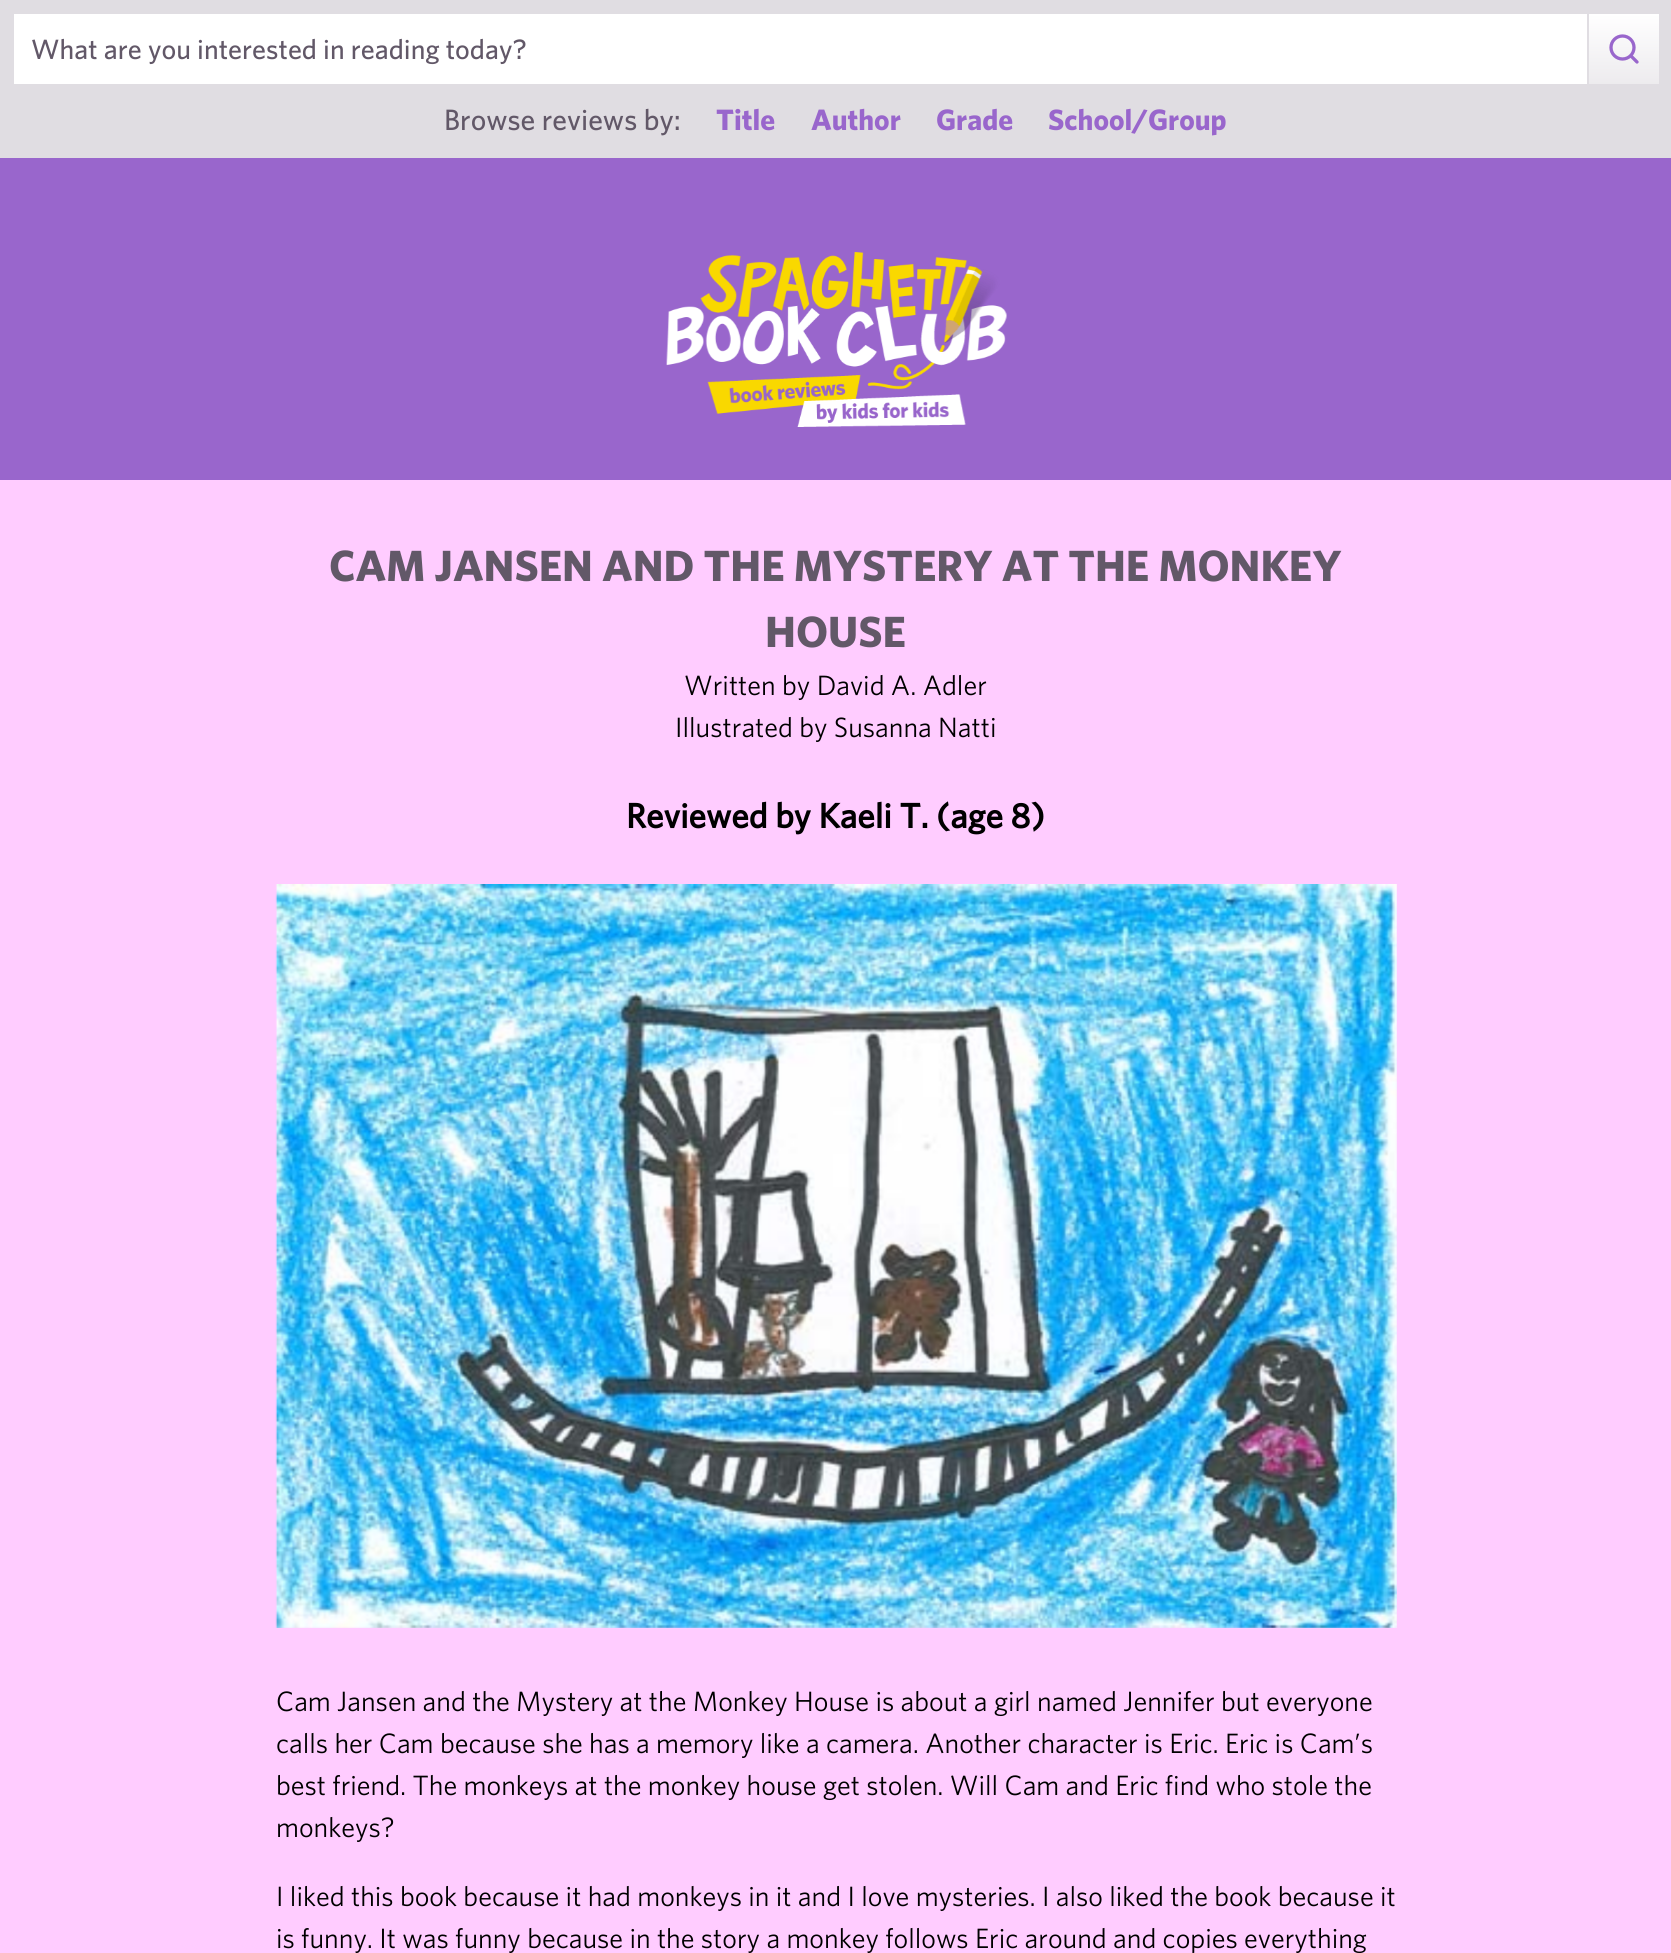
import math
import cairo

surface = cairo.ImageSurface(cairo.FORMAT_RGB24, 1671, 1953)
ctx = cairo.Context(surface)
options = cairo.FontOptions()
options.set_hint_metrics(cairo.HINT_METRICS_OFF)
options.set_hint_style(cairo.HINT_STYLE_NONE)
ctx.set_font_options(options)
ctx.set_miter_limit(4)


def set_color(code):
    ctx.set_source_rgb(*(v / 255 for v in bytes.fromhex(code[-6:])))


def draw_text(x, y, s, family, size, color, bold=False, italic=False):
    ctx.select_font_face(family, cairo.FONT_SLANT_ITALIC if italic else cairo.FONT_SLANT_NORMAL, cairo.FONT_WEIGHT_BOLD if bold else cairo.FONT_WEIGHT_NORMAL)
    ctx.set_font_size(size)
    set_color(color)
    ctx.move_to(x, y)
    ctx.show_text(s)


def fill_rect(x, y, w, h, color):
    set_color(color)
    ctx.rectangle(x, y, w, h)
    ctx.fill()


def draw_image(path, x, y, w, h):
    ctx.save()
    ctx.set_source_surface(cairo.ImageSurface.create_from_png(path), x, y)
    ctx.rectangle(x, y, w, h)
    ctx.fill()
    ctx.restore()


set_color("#9966cc")
ctx.paint()
fill_rect(0, 0, 1671, 158, "#e0dde2")
fill_rect(14, 14, 1573, 70, "#ffffff")
draw_text(31, 59, "What are you interested in reading today?", "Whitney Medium", 28, "#625868")
gradient = cairo.LinearGradient(1590, 84, 1590, -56)
gradient.add_color_stop_rgba(0, 0.929, 0.922, 0.933, 1)
gradient.add_color_stop_rgba(0.5, 1, 1, 1, 1)
ctx.set_source(gradient)
ctx.rectangle(1589, 14, 70, 70)
ctx.fill()
ctx.arc(1622.5, 47.5, 11.5, 0, 2 * math.pi)
set_color("#9966cc")
ctx.set_line_width(3.3)
ctx.stroke()
ctx.new_path()
ctx.move_to(1637, 62)
ctx.line_to(1631, 56)
ctx.set_line_cap(cairo.LINE_CAP_ROUND)
ctx.set_line_join(cairo.LINE_JOIN_ROUND)
ctx.stroke()
draw_text(444, 130, "Browse reviews by:", "Whitney Medium", 29.5, "#625868")
draw_text(716, 130, "Title", "Whitney", 29.5, "#9966cc", bold=True)
draw_text(811, 130, "Author", "Whitney", 29.5, "#9966cc", bold=True)
draw_text(936, 130, "Grade", "Whitney", 29.5, "#9966cc", bold=True)
draw_text(1048, 130, "School/Group", "Whitney", 29.5, "#9966cc", bold=True)
draw_image("assets/img1.png", 666, 252, 341, 175)
fill_rect(0, 480, 1671, 1473, "#ffccff")
draw_text(329, 581, "CAM JANSEN AND THE MYSTERY AT THE MONKEY", "Whitney", 43.75, "#625868", bold=True)
draw_text(765, 647, "HOUSE", "Whitney", 43.75, "#625868", bold=True)
draw_text(684, 695, "Written by David A. Adler", "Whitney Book", 28, "#000000")
draw_text(675, 737, "Illustrated by Susanna Natti", "Whitney Book", 28, "#000000")
draw_text(626, 828, "Reviewed by Kaeli T. (age 8)", "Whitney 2", 35, "#000000", bold=True)
draw_image("assets/img2.png", 275, 884, 1122, 744)
draw_text(276, 1711, "Cam Jansen and the Mystery at the Monkey House is about a girl named Jennifer but everyone", "Whitney Book", 28, "#000000")
draw_text(276, 1753, "calls her Cam because she has a memory like a camera. Another character is Eric. Eric is Cam’s", "Whitney Book", 28, "#000000")
draw_text(276, 1795, "best friend. The monkeys at the monkey house get stolen. Will Cam and Eric find who stole the", "Whitney Book", 28, "#000000")
draw_text(276, 1837, "monkeys?", "Whitney Book", 28, "#000000")
draw_text(276, 1906, "I liked this book because it had monkeys in it and I love mysteries. I also liked the book because it", "Whitney Book", 28, "#000000")
draw_text(276, 1948, "is funny. It was funny because in the story a monkey follows Eric around and copies everything", "Whitney Book", 28, "#000000")
surface.write_to_png("output.png")
